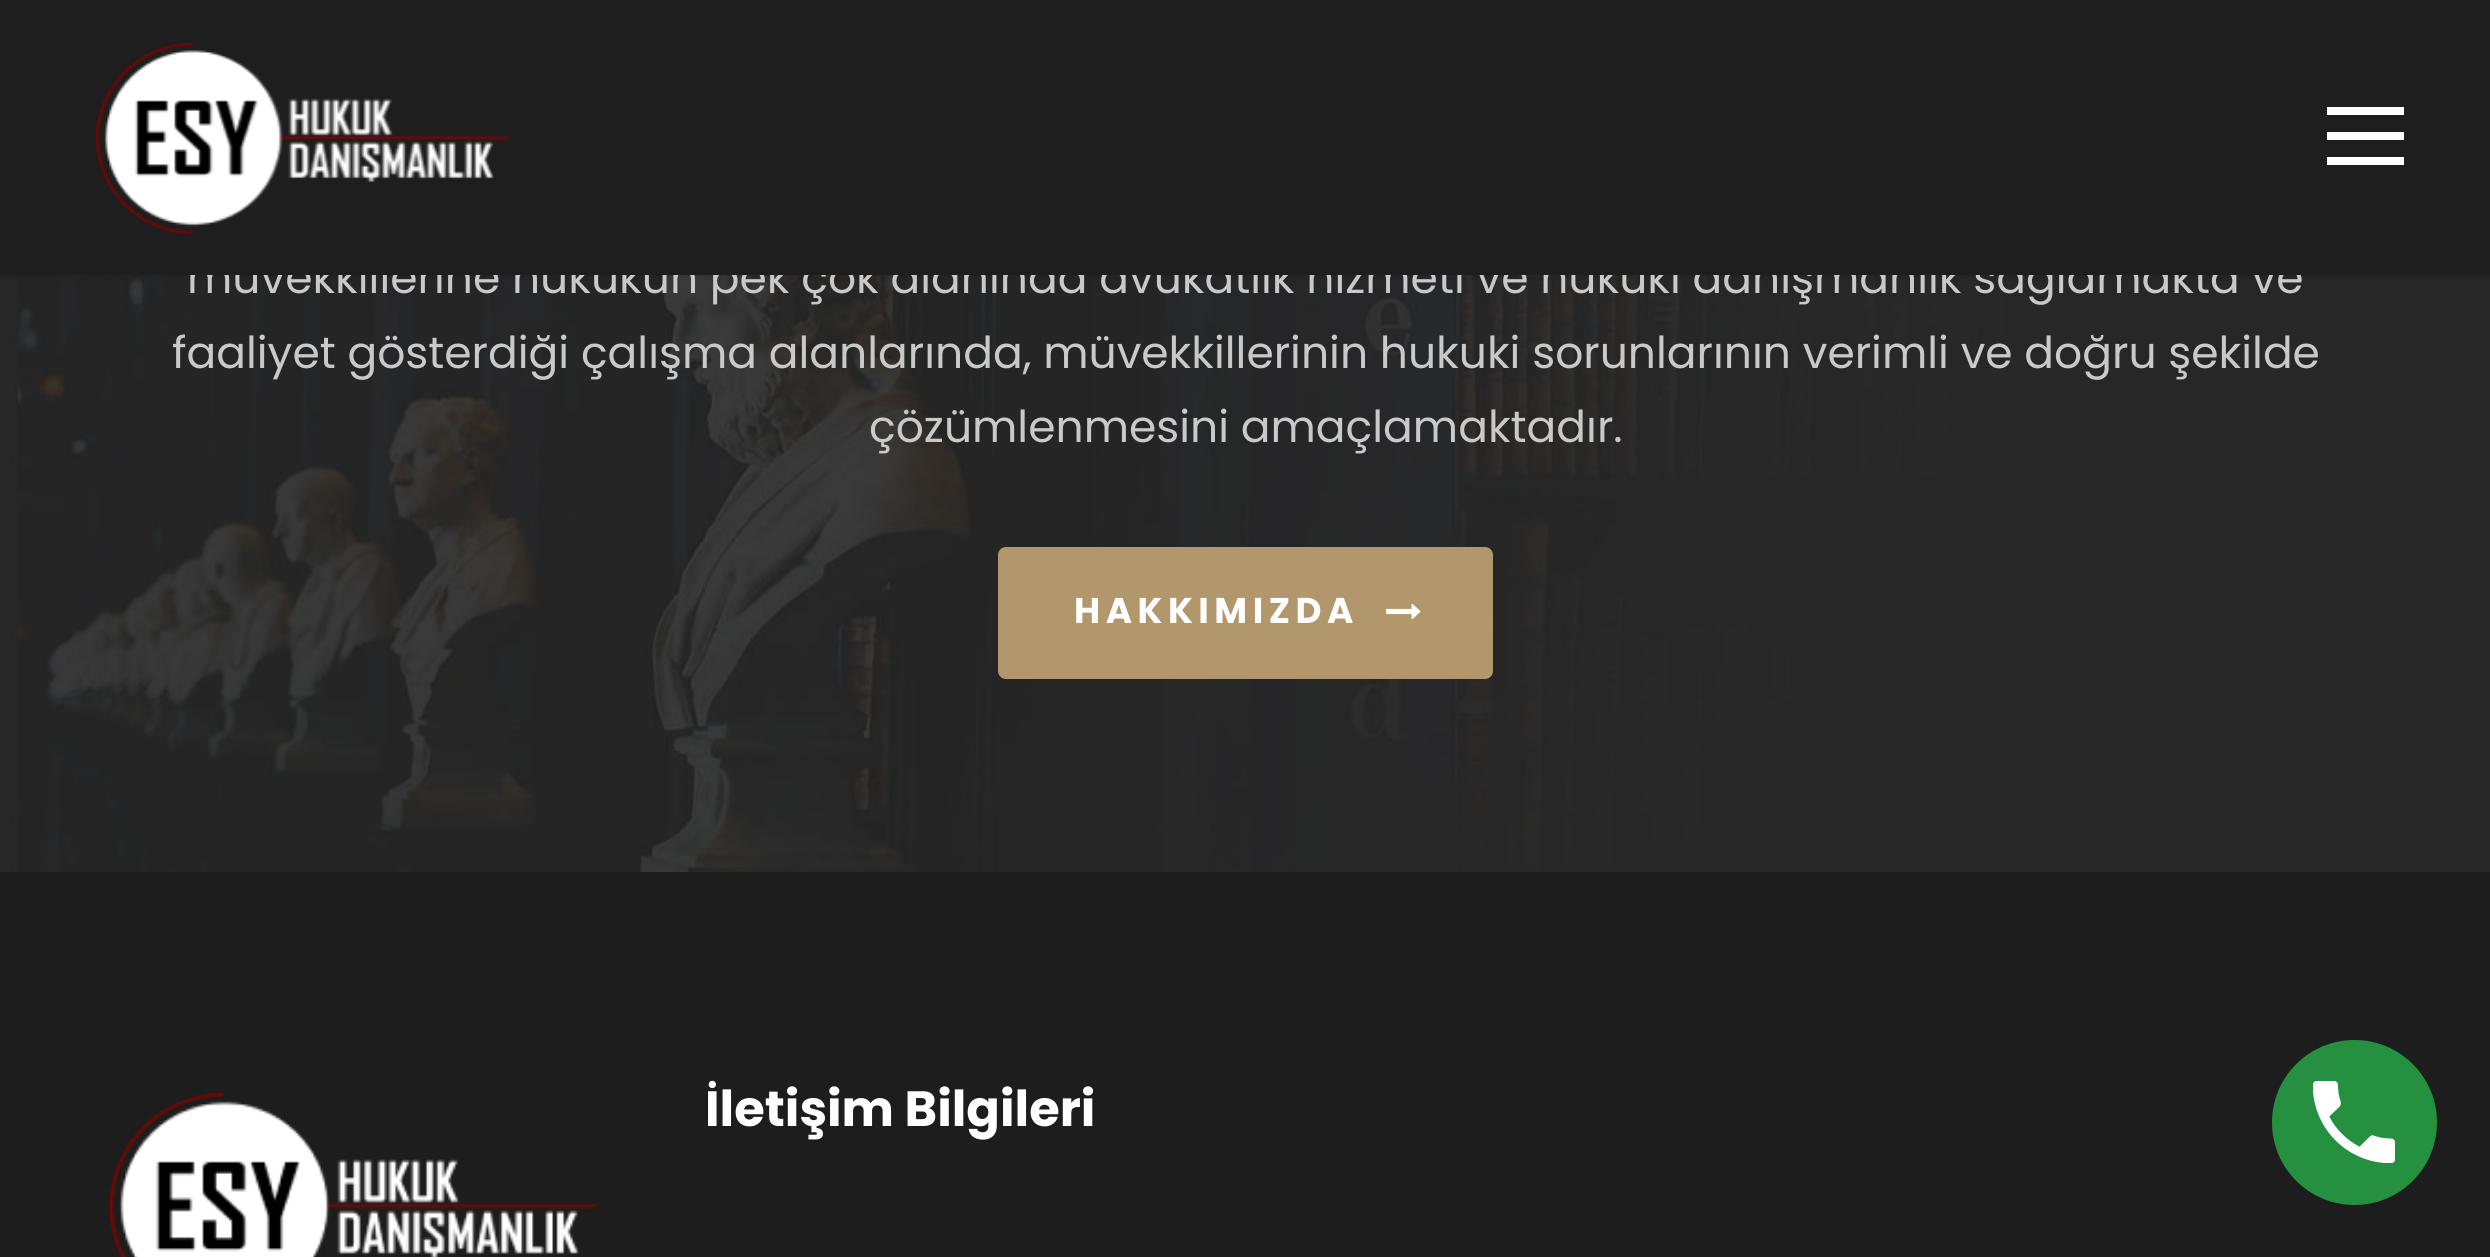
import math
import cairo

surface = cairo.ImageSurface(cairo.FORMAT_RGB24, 2490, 1257)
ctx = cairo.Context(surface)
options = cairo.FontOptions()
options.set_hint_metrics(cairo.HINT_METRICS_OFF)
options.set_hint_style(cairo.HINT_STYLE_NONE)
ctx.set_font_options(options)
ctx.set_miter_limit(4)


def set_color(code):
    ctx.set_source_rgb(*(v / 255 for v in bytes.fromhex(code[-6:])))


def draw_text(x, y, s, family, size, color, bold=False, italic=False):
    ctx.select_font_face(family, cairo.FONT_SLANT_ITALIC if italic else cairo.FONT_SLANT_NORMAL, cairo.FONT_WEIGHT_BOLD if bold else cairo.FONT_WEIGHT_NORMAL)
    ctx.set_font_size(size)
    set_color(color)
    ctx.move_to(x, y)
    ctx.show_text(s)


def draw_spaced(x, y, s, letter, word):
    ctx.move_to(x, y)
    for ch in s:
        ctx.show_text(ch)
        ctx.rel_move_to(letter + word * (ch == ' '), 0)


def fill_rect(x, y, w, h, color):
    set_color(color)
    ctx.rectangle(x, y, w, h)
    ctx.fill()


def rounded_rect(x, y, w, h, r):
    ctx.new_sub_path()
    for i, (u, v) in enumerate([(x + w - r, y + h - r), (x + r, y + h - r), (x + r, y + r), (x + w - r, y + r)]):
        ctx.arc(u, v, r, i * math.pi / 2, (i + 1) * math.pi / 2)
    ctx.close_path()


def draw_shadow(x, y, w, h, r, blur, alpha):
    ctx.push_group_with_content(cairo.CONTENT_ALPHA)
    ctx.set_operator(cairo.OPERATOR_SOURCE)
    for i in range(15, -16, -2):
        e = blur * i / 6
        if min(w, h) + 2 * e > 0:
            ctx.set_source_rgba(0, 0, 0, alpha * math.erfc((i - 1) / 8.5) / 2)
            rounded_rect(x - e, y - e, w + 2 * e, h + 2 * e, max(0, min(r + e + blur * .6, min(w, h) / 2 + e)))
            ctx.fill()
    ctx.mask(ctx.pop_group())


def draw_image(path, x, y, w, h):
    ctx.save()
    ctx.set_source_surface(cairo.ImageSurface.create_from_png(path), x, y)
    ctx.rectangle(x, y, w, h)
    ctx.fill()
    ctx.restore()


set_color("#ffffff")
ctx.paint()
draw_image("assets/img3.png", 0, 275, 2490, 597)
set_color("#000000")
draw_shadow(0, 3, 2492, 275, 0, 3, 0.1)
draw_text(187, 293, "müvekkillerine hukukun pek çok alanında avukatlık hizmeti ve hukuki danışmanlık sağlamakta ve", "Poppins", 44, "#c9c9c9")
fill_rect(0, 0, 2490, 275, "#1e1e1e")
draw_image("assets/img1.png", 96, 41, 413, 194)
fill_rect(2327, 107, 77, 8, "#ffffff")
fill_rect(2327, 132, 77, 8, "#ffffff")
fill_rect(2327, 157, 77, 8, "#ffffff")
draw_text(172, 368, "faaliyet gösterdiği çalışma alanlarında, müvekkillerinin hukuki sorunlarının verimli ve doğru şekilde", "Poppins", 44, "#c9c9c9")
draw_text(869, 442, "çözümlenmesini amaçlamaktadır.", "Poppins", 44, "#c9c9c9")
set_color("#b1976b")
rounded_rect(998, 547, 495, 132, 8)
ctx.fill()
ctx.select_font_face("Poppins", cairo.FONT_SLANT_NORMAL, cairo.FONT_WEIGHT_BOLD)
ctx.set_font_size(35.75)
set_color("#ffffff")
draw_spaced(1074, 623, "HAKKIMIZDA", 5.5, 0)
draw_image("assets/img2.png", 1386, 603, 35, 17)
fill_rect(0, 872, 2490, 385, "#1d1d1d")
draw_image("assets/img4.png", 110, 1091, 487, 166)
draw_text(705, 1126, "İletişim Bilgileri", "Poppins", 49.5, "#ffffff", bold=True)
set_color("#269041")
ctx.new_path()
ctx.arc(2354.5, 1122.5, 82.5, 0, 2 * math.pi)
ctx.fill()
draw_image("assets/img5.png", 2313, 1081, 82, 82)
surface.write_to_png("output.png")
